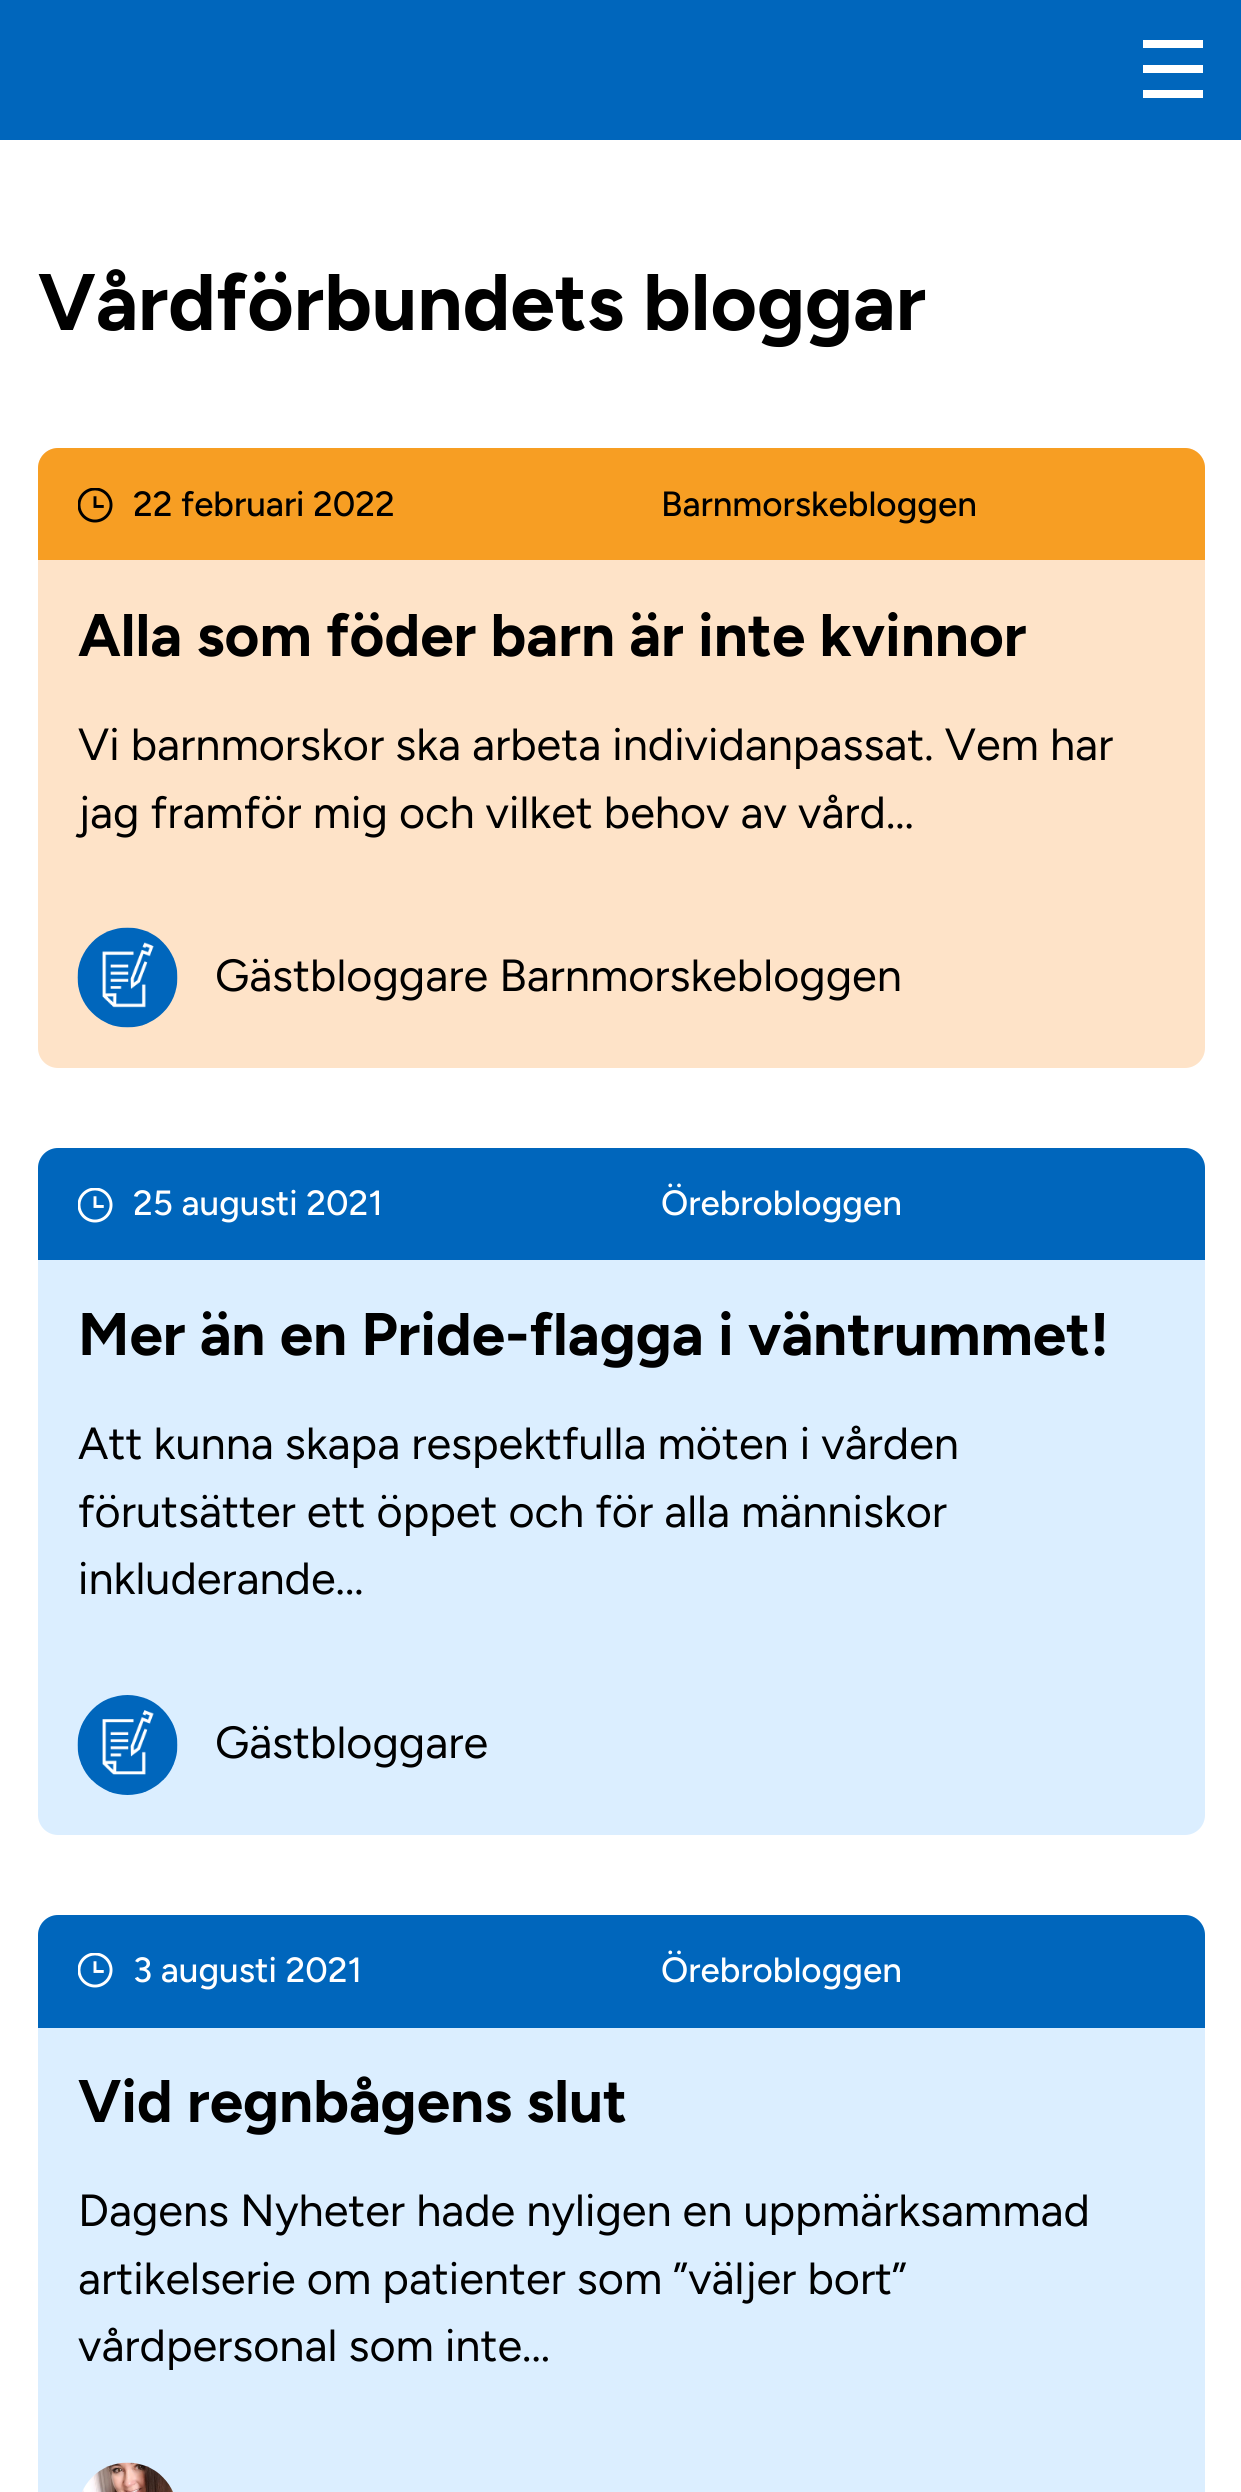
import math
import cairo

surface = cairo.ImageSurface(cairo.FORMAT_RGB24, 1241, 2492)
ctx = cairo.Context(surface)
options = cairo.FontOptions()
options.set_hint_metrics(cairo.HINT_METRICS_OFF)
options.set_hint_style(cairo.HINT_STYLE_NONE)
ctx.set_font_options(options)
ctx.set_miter_limit(4)


def set_color(code):
    ctx.set_source_rgb(*(v / 255 for v in bytes.fromhex(code[-6:])))


def draw_text(x, y, s, family, size, color, bold=False, italic=False):
    ctx.select_font_face(family, cairo.FONT_SLANT_ITALIC if italic else cairo.FONT_SLANT_NORMAL, cairo.FONT_WEIGHT_BOLD if bold else cairo.FONT_WEIGHT_NORMAL)
    ctx.set_font_size(size)
    set_color(color)
    ctx.move_to(x, y)
    ctx.show_text(s)


def fill_rect(x, y, w, h, color):
    set_color(color)
    ctx.rectangle(x, y, w, h)
    ctx.fill()


def rounded_rect(x, y, w, h, r):
    ctx.new_sub_path()
    for i, (u, v) in enumerate([(x + w - r, y + h - r), (x + r, y + h - r), (x + r, y + r), (x + w - r, y + r)]):
        ctx.arc(u, v, r, i * math.pi / 2, (i + 1) * math.pi / 2)
    ctx.close_path()


def draw_image(path, x, y, w, h):
    ctx.save()
    ctx.set_source_surface(cairo.ImageSurface.create_from_png(path), x, y)
    ctx.rectangle(x, y, w, h)
    ctx.fill()
    ctx.restore()


set_color("#ffffff")
ctx.paint()
fill_rect(0, 0, 1241, 140, "#0066bc")
fill_rect(1143, 40, 60, 8, "#ffffff")
fill_rect(1143, 65, 60, 8, "#ffffff")
fill_rect(1143, 90, 60, 8, "#ffffff")
draw_text(38, 330, "Vårdförbundets bloggar", "Figtree", 80, "#000000", bold=True)
set_color("#fee3c8")
rounded_rect(38, 448, 1167, 620, 20)
ctx.fill()
set_color("#f79e23")
ctx.new_path()
ctx.move_to(58, 448)
ctx.line_to(1185, 448)
ctx.curve_to(1196, 448, 1205, 457, 1205, 468)
ctx.line_to(1205, 560)
ctx.line_to(38, 560)
ctx.line_to(38, 468)
ctx.curve_to(38, 457, 47, 448, 58, 448)
ctx.close_path()
ctx.fill()
draw_image("assets/img1.png", 78, 488, 35, 35)
draw_text(133, 516, "22 februari 2022", "Figtree Medium", 35, "#000000")
draw_text(661, 516, "Barnmorskebloggen", "Figtree Medium", 35, "#000000")
draw_text(78, 656, "Alla som föder barn är inte kvinnor", "Figtree", 60, "#000000", bold=True)
draw_text(78, 760, "Vi barnmorskor ska arbeta individanpassat. Vem har", "Figtree", 45, "#000000")
draw_text(78, 828, "jag framför mig och vilket behov av vård...", "Figtree", 45, "#000000")
draw_image("assets/img2.png", 77, 927, 101, 101)
draw_text(215, 991, "Gästbloggare Barnmorskebloggen", "Figtree", 45, "#000000")
set_color("#dbeeff")
rounded_rect(38, 1148, 1167, 687, 20)
ctx.fill()
set_color("#0066bc")
ctx.new_path()
ctx.move_to(58, 1148)
ctx.line_to(1185, 1148)
ctx.curve_to(1196, 1148, 1205, 1157, 1205, 1168)
ctx.line_to(1205, 1260)
ctx.line_to(38, 1260)
ctx.line_to(38, 1168)
ctx.curve_to(38, 1157, 47, 1148, 58, 1148)
ctx.close_path()
ctx.fill()
draw_image("assets/img3.png", 78, 1188, 35, 35)
draw_text(133, 1215, "25 augusti 2021", "Figtree Medium", 35, "#ffffff")
draw_text(661, 1215, "Örebrobloggen", "Figtree Medium", 35, "#ffffff")
draw_text(78, 1355, "Mer än en Pride-flagga i väntrummet!", "Figtree", 60, "#000000", bold=True)
draw_text(78, 1459, "Att kunna skapa respektfulla möten i vården", "Figtree", 45, "#000000")
draw_text(78, 1527, "förutsätter ett öppet och för alla människor", "Figtree", 45, "#000000")
draw_text(78, 1594, "inkluderande...", "Figtree", 45, "#000000")
draw_image("assets/img4.png", 77, 1695, 101, 100)
draw_text(215, 1758, "Gästbloggare", "Figtree", 45, "#000000")
set_color("#dbeeff")
rounded_rect(38, 1915, 1167, 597, 20)
ctx.fill()
set_color("#0066bc")
ctx.new_path()
ctx.move_to(58, 1915)
ctx.line_to(1185, 1915)
ctx.curve_to(1196, 1915, 1205, 1924, 1205, 1935)
ctx.line_to(1205, 2028)
ctx.line_to(38, 2028)
ctx.line_to(38, 1935)
ctx.curve_to(38, 1924, 47, 1915, 58, 1915)
ctx.close_path()
ctx.fill()
draw_image("assets/img3.png", 78, 1953, 35, 35)
draw_text(133, 1982, "3 augusti 2021", "Figtree Medium", 35, "#ffffff")
draw_text(661, 1982, "Örebrobloggen", "Figtree Medium", 35, "#ffffff")
draw_text(78, 2122, "Vid regnbågens slut", "Figtree", 60, "#000000", bold=True)
draw_text(78, 2226, "Dagens Nyheter hade nyligen en uppmärksammad", "Figtree", 45, "#000000")
draw_text(78, 2294, "artikelserie om patienter som ”väljer bort”", "Figtree", 45, "#000000")
draw_text(78, 2361, "vårdpersonal som inte...", "Figtree", 45, "#000000")
draw_image("assets/img5.png", 82, 2462, 91, 30)
surface.write_to_png("output.png")
